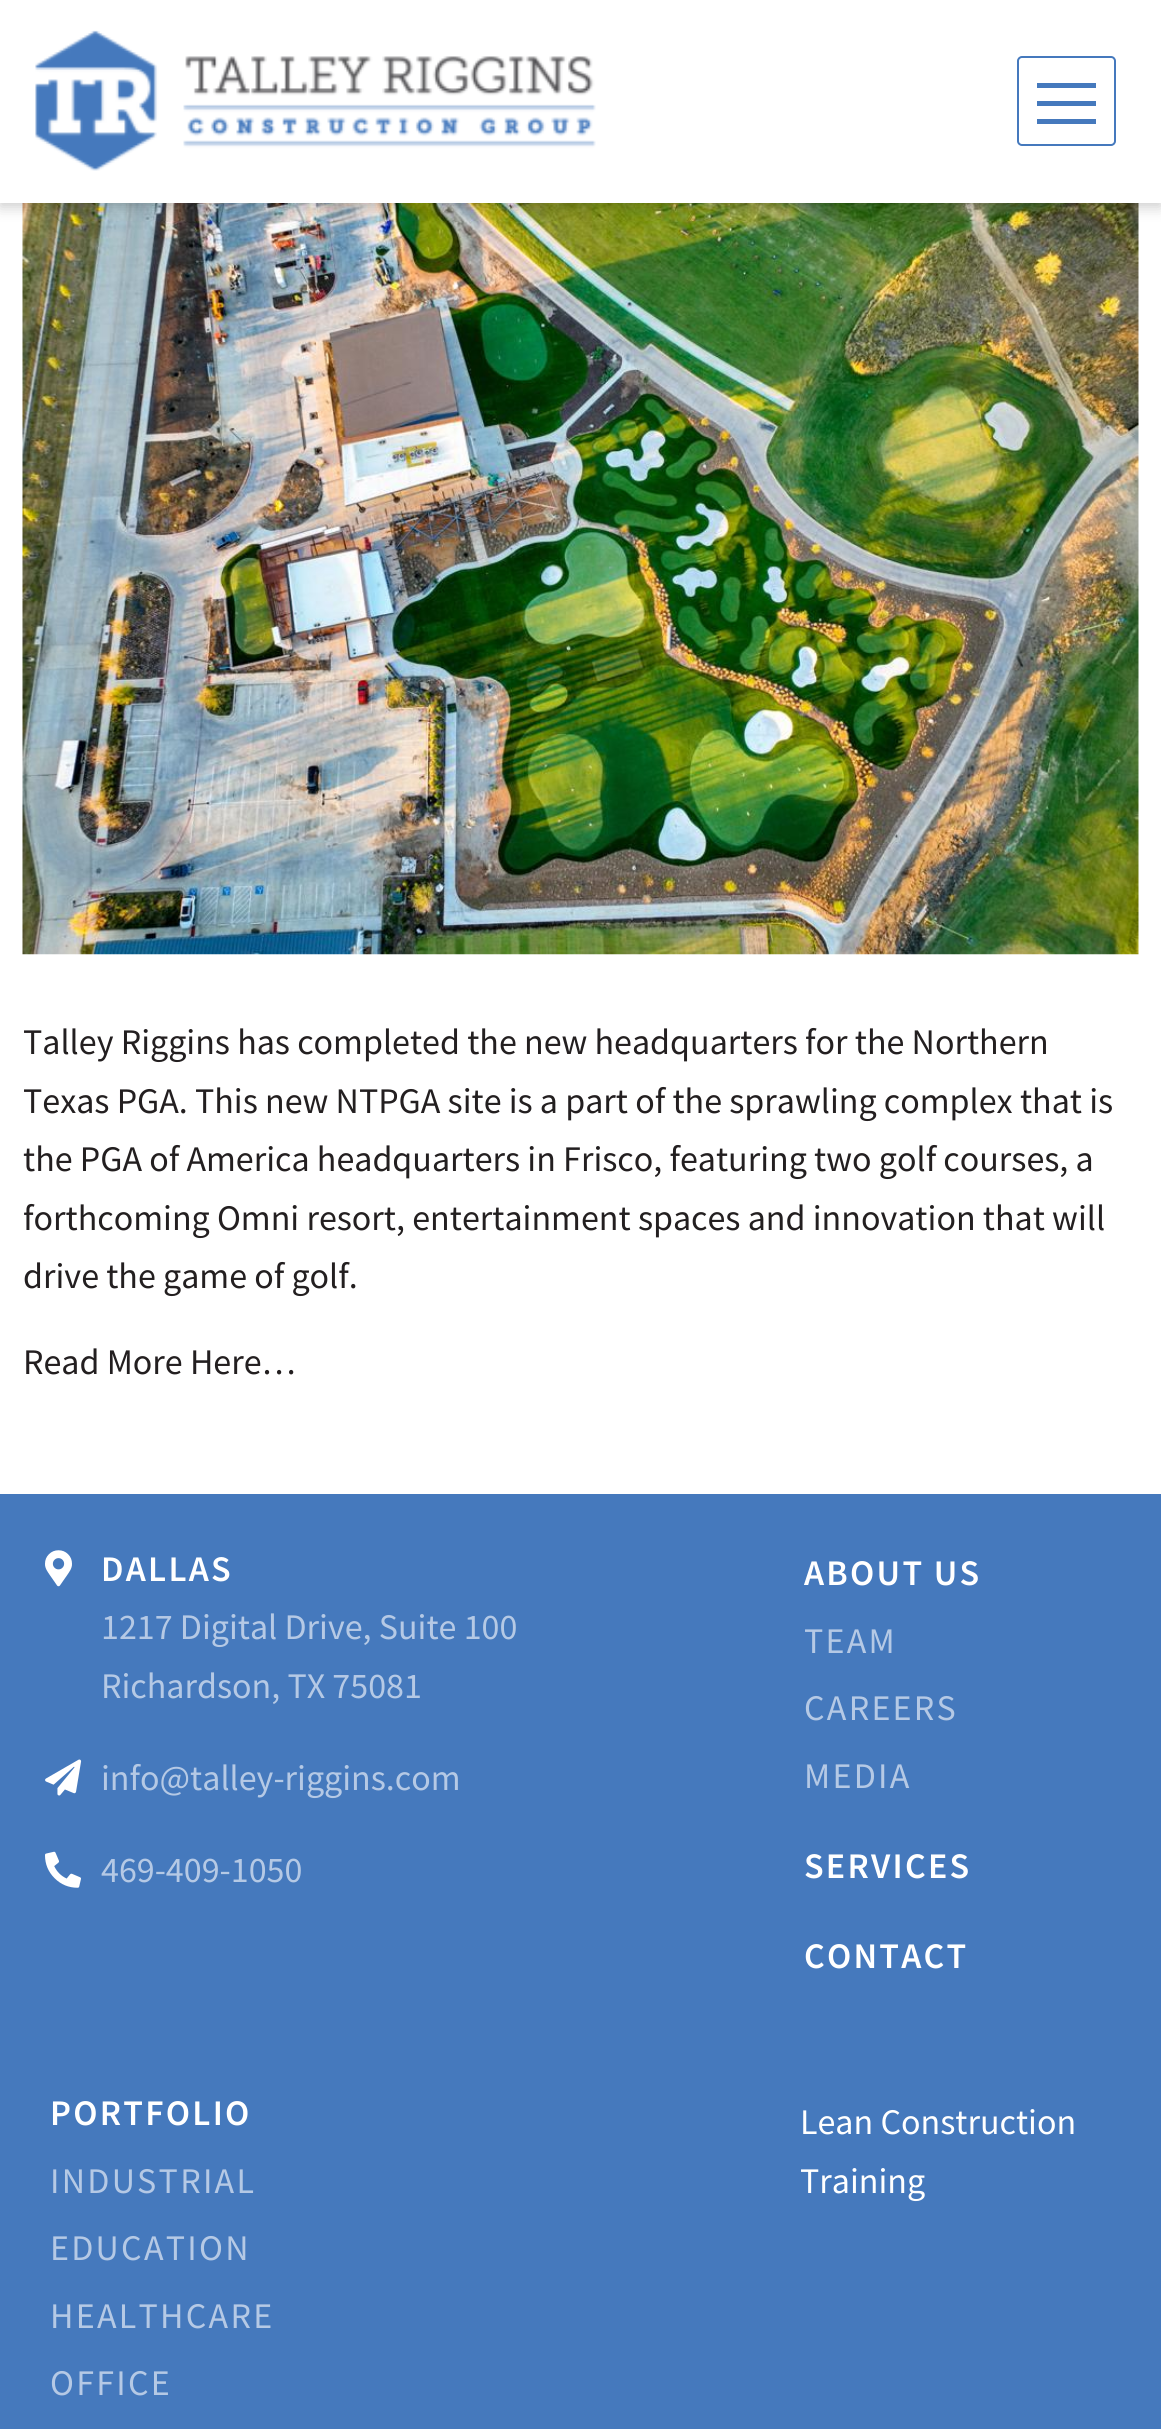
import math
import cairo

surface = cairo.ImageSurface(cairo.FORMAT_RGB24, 1161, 2429)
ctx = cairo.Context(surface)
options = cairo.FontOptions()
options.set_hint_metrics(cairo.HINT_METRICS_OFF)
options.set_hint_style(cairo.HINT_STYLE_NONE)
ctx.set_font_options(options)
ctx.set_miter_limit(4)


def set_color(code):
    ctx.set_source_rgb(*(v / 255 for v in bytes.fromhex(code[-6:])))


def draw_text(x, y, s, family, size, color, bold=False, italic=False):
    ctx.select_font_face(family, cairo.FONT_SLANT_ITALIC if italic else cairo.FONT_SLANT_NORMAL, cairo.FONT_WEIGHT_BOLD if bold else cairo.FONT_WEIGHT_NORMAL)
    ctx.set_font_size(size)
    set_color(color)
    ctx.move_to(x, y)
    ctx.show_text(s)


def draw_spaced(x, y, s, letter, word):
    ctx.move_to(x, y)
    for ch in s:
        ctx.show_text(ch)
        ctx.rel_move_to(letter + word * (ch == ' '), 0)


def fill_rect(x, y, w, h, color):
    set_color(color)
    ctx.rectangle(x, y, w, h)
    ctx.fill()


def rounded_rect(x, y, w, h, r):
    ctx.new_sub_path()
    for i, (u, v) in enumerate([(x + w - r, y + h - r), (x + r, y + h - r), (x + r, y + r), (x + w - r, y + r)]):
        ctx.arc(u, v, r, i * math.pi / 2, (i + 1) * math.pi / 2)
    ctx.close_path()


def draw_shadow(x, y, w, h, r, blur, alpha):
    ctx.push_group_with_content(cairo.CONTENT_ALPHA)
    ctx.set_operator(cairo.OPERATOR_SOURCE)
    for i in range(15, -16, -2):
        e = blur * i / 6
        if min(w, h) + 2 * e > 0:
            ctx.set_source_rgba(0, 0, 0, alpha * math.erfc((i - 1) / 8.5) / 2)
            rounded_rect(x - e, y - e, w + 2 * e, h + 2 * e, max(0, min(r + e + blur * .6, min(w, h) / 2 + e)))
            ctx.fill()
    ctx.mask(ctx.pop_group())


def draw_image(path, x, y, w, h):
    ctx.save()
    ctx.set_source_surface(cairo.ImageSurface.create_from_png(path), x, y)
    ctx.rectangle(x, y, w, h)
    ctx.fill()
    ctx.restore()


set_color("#ffffff")
ctx.paint()
draw_image("assets/img2.png", 22, 203, 1117, 752)
set_color("#000000")
draw_shadow(0, 5, 1161, 202, 0, 7, 0.2)
fill_rect(0, 0, 1161, 203, "#ffffff")
draw_image("assets/img1.png", 35, 30, 561, 141)
rounded_rect(1018, 57, 97, 88, 4)
set_color("#4579bd")
ctx.stroke()
fill_rect(1037, 101, 59, 5, "#4579bd")
fill_rect(1037, 83, 59, 5, "#4579bd")
fill_rect(1037, 119, 59, 5, "#4579bd")
draw_text(23, 1054, "Talley Riggins has completed the new headquarters for the Northern", "Source Sans Pro", 36, "#231f20")
draw_text(23, 1113, "Texas PGA. This new NTPGA site is a part of the sprawling complex that is", "Source Sans Pro", 36, "#231f20")
draw_text(23, 1171, "the PGA of America headquarters in Frisco, featuring two golf courses, a", "Source Sans Pro", 36, "#231f20")
draw_text(23, 1230, "forthcoming Omni resort, entertainment spaces and innovation that will", "Source Sans Pro", 36, "#231f20")
draw_text(23, 1288, "drive the game of golf.", "Source Sans Pro", 36, "#231f20")
draw_text(23, 1374, "Read More Here…", "Source Sans Pro", 36, "#231f20")
fill_rect(0, 1494, 1161, 935, "#4579bd")
draw_image("assets/img3.png", 45, 1550, 27, 37)
ctx.select_font_face("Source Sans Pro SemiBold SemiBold")
set_color("#ffffff")
draw_spaced(101, 1581, "DALLAS", 2.25, 0)
draw_text(101, 1639, "1217 Digital Drive, Suite 100", "Source Sans Pro", 36, "#b5c9e5")
draw_text(101, 1698, "Richardson, TX 75081", "Source Sans Pro", 36, "#b5c9e5")
draw_image("assets/img4.png", 45, 1759, 37, 37)
draw_text(101, 1790, "info@talley-riggins.com", "Source Sans Pro", 36, "#b5c9e5")
draw_image("assets/img5.png", 45, 1851, 36, 37)
draw_text(101, 1882, "469-409-1050", "Source Sans Pro", 36, "#b5c9e5")
ctx.select_font_face("Source Sans Pro SemiBold SemiBold")
set_color("#ffffff")
draw_spaced(804, 1585, "ABOUT US", 2.25, 0)
ctx.select_font_face("Source Sans Pro")
set_color("#b5c9e5")
draw_spaced(804, 1653, "TEAM", 2.25, 0)
draw_spaced(804, 1720, "CAREERS", 2.25, 0)
draw_spaced(804, 1788, "MEDIA", 2.25, 0)
ctx.select_font_face("Source Sans Pro SemiBold SemiBold")
set_color("#ffffff")
draw_spaced(804, 1878, "SERVICES", 2.25, 0)
draw_spaced(804, 1968, "CONTACT", 2.25, 0)
draw_spaced(50, 2125, "PORTFOLIO", 2.25, 0)
ctx.select_font_face("Source Sans Pro")
set_color("#b5c9e5")
draw_spaced(50, 2193, "INDUSTRIAL", 2.25, 0)
draw_spaced(50, 2260, "EDUCATION", 2.25, 0)
draw_spaced(50, 2328, "HEALTHCARE", 2.25, 0)
draw_spaced(50, 2395, "OFFICE", 2.25, 0)
draw_text(800, 2134, "Lean Construction", "Source Sans Pro", 36, "#ffffff")
draw_text(800, 2193, "Training", "Source Sans Pro", 36, "#ffffff")
surface.write_to_png("output.png")
